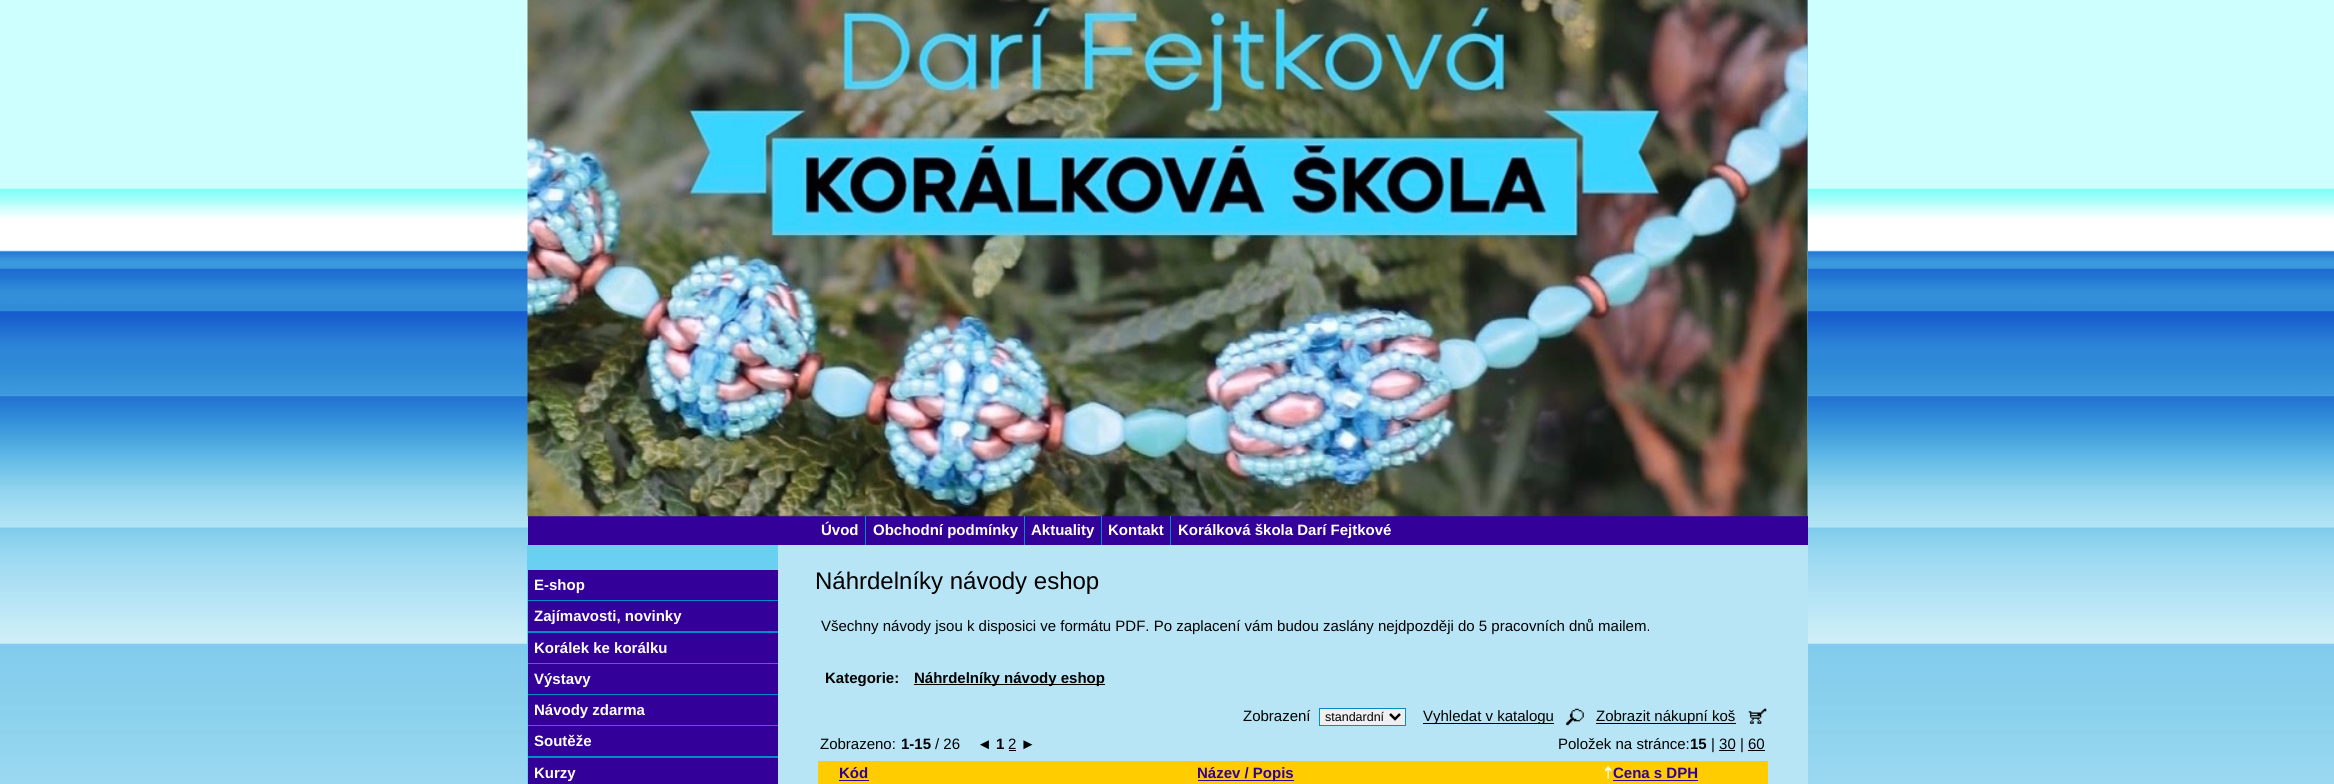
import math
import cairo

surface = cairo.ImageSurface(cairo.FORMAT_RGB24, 2334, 784)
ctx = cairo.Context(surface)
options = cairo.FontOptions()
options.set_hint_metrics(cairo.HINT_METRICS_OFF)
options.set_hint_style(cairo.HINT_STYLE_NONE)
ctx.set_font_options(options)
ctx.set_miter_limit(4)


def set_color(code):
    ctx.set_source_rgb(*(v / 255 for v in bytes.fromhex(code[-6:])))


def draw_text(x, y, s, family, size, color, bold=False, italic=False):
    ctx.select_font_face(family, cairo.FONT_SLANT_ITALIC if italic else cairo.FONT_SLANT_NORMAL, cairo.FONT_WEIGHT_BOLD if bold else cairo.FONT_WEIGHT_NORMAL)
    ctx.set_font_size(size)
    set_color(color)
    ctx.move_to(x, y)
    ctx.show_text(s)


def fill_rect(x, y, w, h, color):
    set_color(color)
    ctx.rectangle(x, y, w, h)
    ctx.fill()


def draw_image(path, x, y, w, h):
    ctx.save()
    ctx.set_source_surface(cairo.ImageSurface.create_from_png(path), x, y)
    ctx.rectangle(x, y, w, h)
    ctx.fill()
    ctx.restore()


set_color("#ffffff")
ctx.paint()
draw_image("assets/img1.png", 0, 0, 2334, 784)
fill_rect(1807, 0, 1, 516, "#6ad0f2")
fill_rect(528, 516, 1280, 29, "#330099")
draw_image("assets/img2.png", 527, 0, 1281, 517)
draw_text(821, 535, "Úvod", "Liberation Sans", 15, "#ffffff", bold=True)
fill_rect(865, 516, 1, 29, "#008cc4")
draw_text(873, 535, "Obchodní podmínky", "Liberation Sans", 15, "#ffffff", bold=True)
fill_rect(1024, 516, 1, 29, "#008cc4")
draw_text(1031, 535, "Aktuality", "Liberation Sans", 15, "#ffffff", bold=True)
fill_rect(1101, 516, 1, 29, "#008cc4")
draw_text(1108, 535, "Kontakt", "Liberation Sans", 15, "#ffffff", bold=True)
fill_rect(1170, 516, 1, 29, "#008cc4")
draw_text(1178, 535, "Korálková škola Darí Fejtkové", "Liberation Sans", 15, "#ffffff", bold=True)
fill_rect(778, 545, 1030, 239, "#b7e5f5")
fill_rect(527, 545, 251, 239, "#6ad0f2")
fill_rect(528, 600, 250, 158, "#008cc4")
fill_rect(528, 570, 250, 30, "#330099")
draw_text(534, 590, "E-shop", "Liberation Sans", 15, "#ffffff", bold=True)
fill_rect(528, 601, 250, 30, "#330099")
draw_text(534, 621, "Zajímavosti, novinky", "Liberation Sans", 15, "#ffffff", bold=True)
fill_rect(528, 633, 250, 30, "#330099")
draw_text(534, 653, "Korálek ke korálku", "Liberation Sans", 15, "#ffffff", bold=True)
fill_rect(528, 664, 250, 30, "#330099")
draw_text(534, 684, "Výstavy", "Liberation Sans", 15, "#ffffff", bold=True)
fill_rect(528, 695, 250, 30, "#330099")
draw_text(534, 715, "Návody zdarma", "Liberation Sans", 15, "#ffffff", bold=True)
fill_rect(528, 726, 250, 30, "#330099")
draw_text(534, 746, "Soutěže", "Liberation Sans", 15, "#ffffff", bold=True)
fill_rect(528, 758, 250, 26, "#330099")
draw_text(534, 778, "Kurzy", "Liberation Sans", 15, "#ffffff", bold=True)
draw_text(815, 589, "Náhrdelníky návody eshop", "Liberation Sans", 24, "#000000")
draw_text(821, 631, "Všechny návody jsou k disposici ve formátu PDF. Po zaplacení vám budou zaslány nejdpozději do 5 pracovních dnů mailem.", "Liberation Sans", 15, "#000000")
draw_text(825, 683, "Kategorie:", "Liberation Sans", 15, "#000000", bold=True)
fill_rect(914, 684, 191, 1, "#000000")
draw_text(914, 683, "Náhrdelníky návody eshop", "Liberation Sans", 15, "#000000", bold=True)
draw_text(1243, 721, "Zobrazení", "Liberation Sans", 15, "#000000")
set_color("#efefef")
ctx.rectangle(1319.5, 708.5, 86, 17)
ctx.fill_preserve()
set_color("#008cc4")
ctx.set_line_width(1)
ctx.stroke()
ctx.new_path()
ctx.move_to(1390, 714)
ctx.line_to(1395, 719)
ctx.line_to(1400, 714)
set_color("#000000")
ctx.set_line_width(2.5)
ctx.stroke()
draw_text(1325, 721, "standardní", "Liberation Sans", 12.5, "#000000")
fill_rect(1423, 723, 131, 1, "#000000")
draw_text(1423, 721, "Vyhledat v katalogu", "Liberation Sans", 15, "#000000")
draw_image("assets/img3.png", 1566, 708, 18, 18)
fill_rect(1596, 723, 140, 1, "#000000")
draw_text(1596, 721, "Zobrazit nákupní koš", "Liberation Sans", 15, "#000000")
draw_image("assets/img4.png", 1748, 708, 19, 16)
draw_text(820, 749, "Zobrazeno:", "Liberation Sans", 15, "#000000")
draw_text(901, 749, "1-15", "Liberation Sans", 15, "#000000", bold=True)
draw_text(935, 749, "/ 26", "Liberation Sans", 15, "#000000")
draw_text(977, 749, "◄", "Liberation Sans", 15, "#000000")
draw_text(996, 749, "1", "Liberation Sans", 15, "#000000", bold=True)
draw_text(1008, 749, "2 ►", "Liberation Sans", 15, "#000000")
fill_rect(1009, 750, 7, 1, "#000000")
draw_text(1558, 749, "Položek na stránce:", "Liberation Sans", 15, "#000000")
draw_text(1690, 749, "15", "Liberation Sans", 15, "#000000", bold=True)
draw_text(1711, 749, "| 30 | 60", "Liberation Sans", 15, "#000000")
fill_rect(1719, 750, 16, 1, "#000000")
fill_rect(1748, 750, 17, 1, "#000000")
fill_rect(818, 761, 950, 23, "#ffcc00")
draw_text(839, 778, "Kód", "Liberation Sans", 15, "#330099", bold=True)
fill_rect(839, 780, 30, 1, "#330099")
fill_rect(1198, 780, 96, 1, "#330099")
draw_text(1197, 778, "Název / Popis", "Liberation Sans", 15, "#330099", bold=True)
draw_image("assets/img5.png", 1604, 766, 8, 13)
draw_text(1613, 778, "Cena s DPH", "Liberation Sans", 15, "#330099", bold=True)
fill_rect(1613, 780, 85, 1, "#330099")
surface.write_to_png("output.png")
